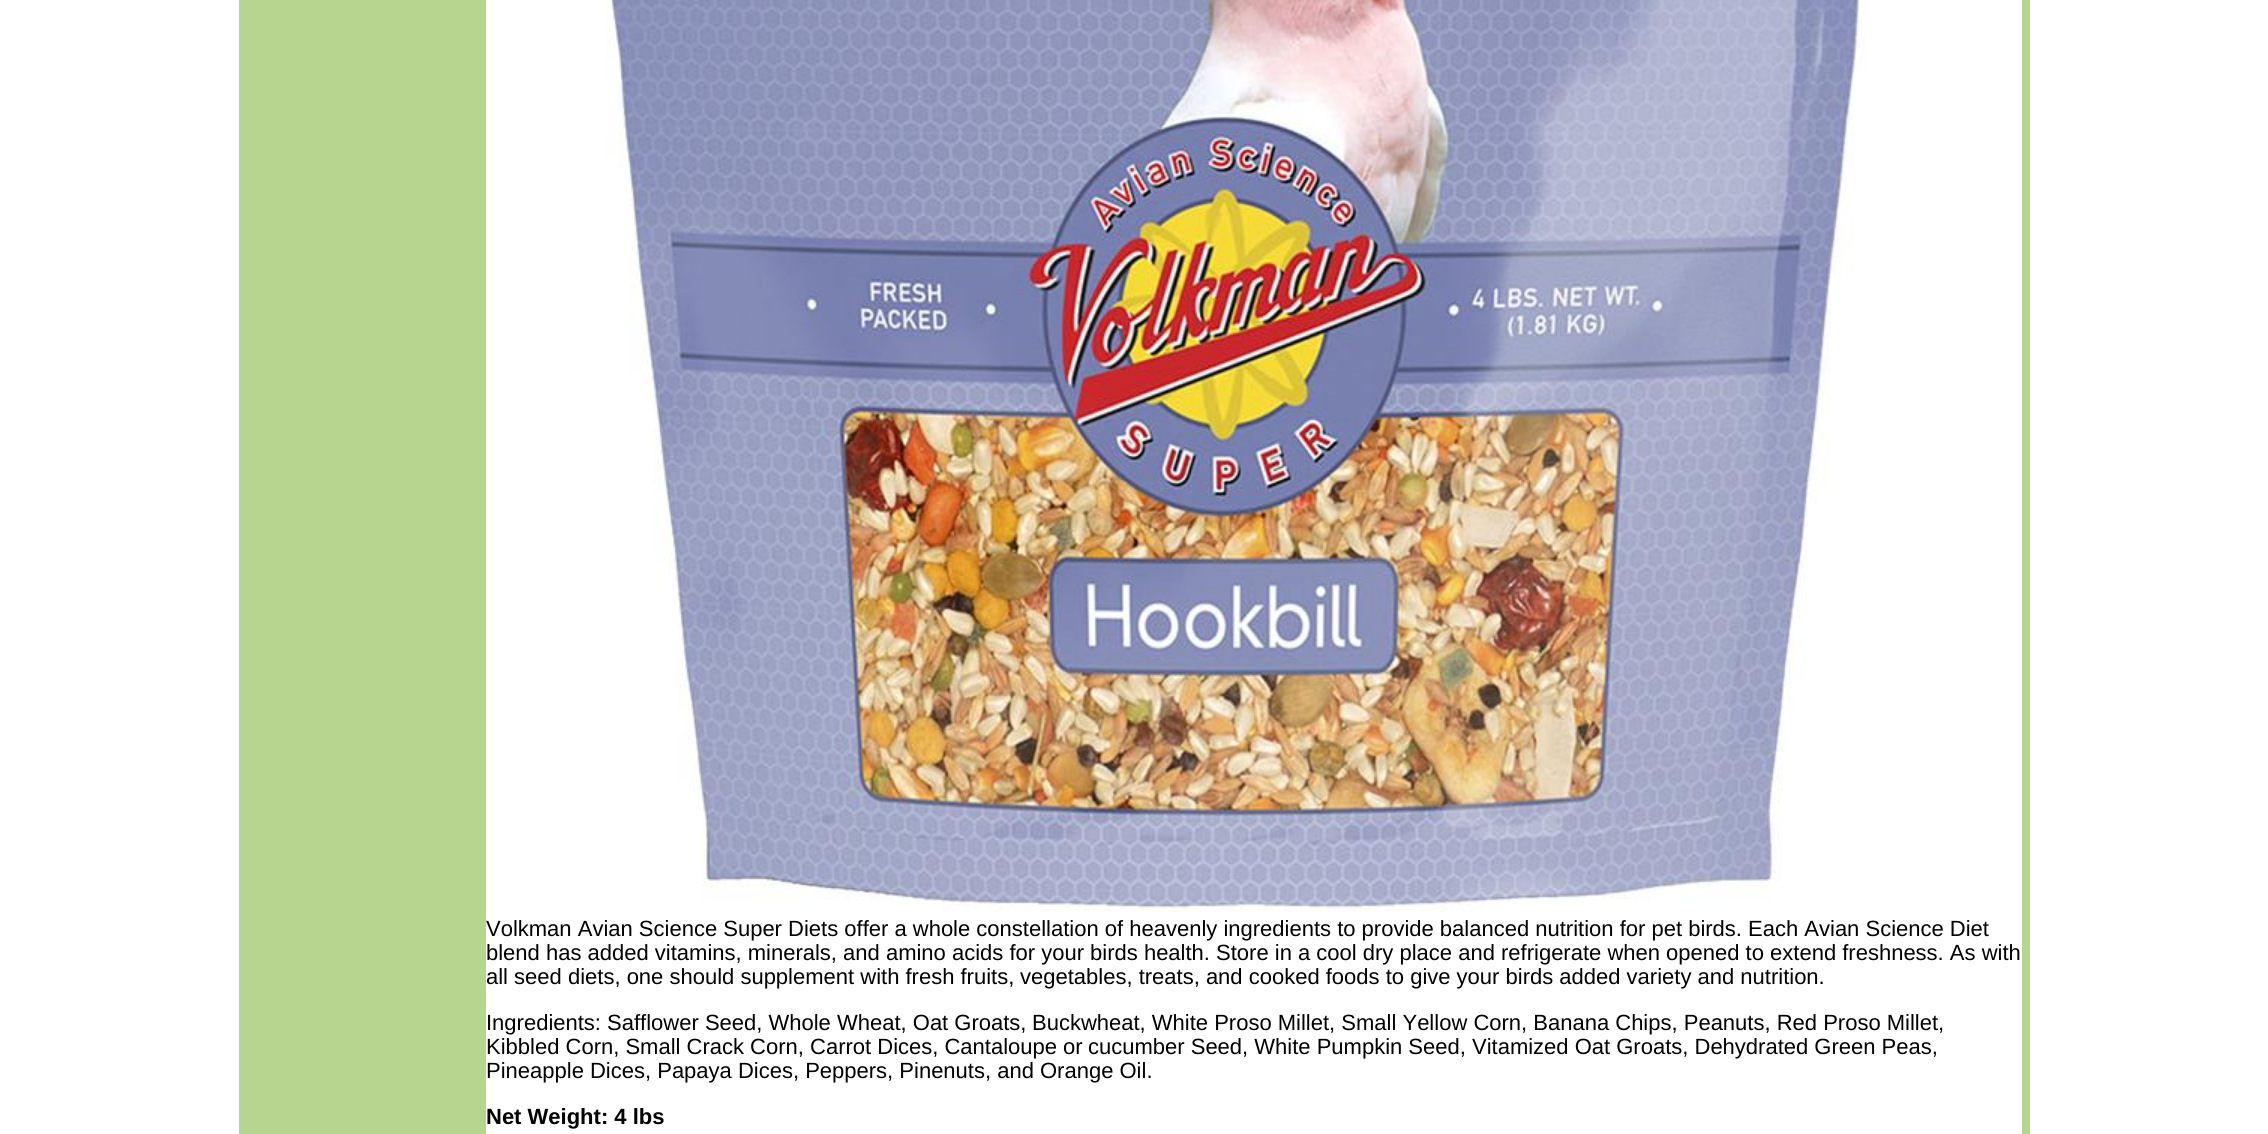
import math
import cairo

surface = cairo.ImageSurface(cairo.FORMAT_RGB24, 2268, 1134)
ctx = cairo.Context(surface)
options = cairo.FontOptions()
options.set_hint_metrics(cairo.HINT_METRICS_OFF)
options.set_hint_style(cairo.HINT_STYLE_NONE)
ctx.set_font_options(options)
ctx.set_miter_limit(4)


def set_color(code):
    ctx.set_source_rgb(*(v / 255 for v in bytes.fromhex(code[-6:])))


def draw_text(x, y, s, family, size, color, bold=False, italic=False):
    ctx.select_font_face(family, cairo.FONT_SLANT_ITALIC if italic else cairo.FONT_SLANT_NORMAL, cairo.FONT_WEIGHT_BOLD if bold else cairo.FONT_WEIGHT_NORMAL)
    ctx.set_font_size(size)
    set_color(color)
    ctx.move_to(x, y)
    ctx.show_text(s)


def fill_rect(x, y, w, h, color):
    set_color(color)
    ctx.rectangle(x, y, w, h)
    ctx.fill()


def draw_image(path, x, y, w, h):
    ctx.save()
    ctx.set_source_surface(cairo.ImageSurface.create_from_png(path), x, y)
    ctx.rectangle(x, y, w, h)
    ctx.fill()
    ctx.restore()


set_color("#ffffff")
ctx.paint()
fill_rect(239, 0, 247, 1134, "#b7d58e")
draw_image("assets/img1.png", 605, 0, 1262, 912)
draw_text(486, 936, "Volkman Avian Science Super Diets offer a whole constellation of heavenly ingredients to provide balanced nutrition for pet birds. Each Avian Science Diet", "Liberation Sans", 22, "#000000")
draw_text(486, 960, "blend has added vitamins, minerals, and amino acids for your birds health. Store in a cool dry place and refrigerate when opened to extend freshness. As with", "Liberation Sans", 22, "#000000")
draw_text(486, 984, "all seed diets, one should supplement with fresh fruits,", "Liberation Sans", 22, "#000000")
draw_text(1020, 984, "vegetables, treats, and cooked foods to give your birds added variety and nutrition.", "Liberation Sans", 22, "#000000")
draw_text(486, 1030, "Ingredients: Safflower Seed, Whole Wheat, Oat Groats,", "Liberation Sans", 22, "#000000")
draw_text(1032, 1030, "Buckwheat, White Proso Millet, Small Yellow Corn, Banana Chips, Peanuts, Red Proso Millet,", "Liberation Sans", 22, "#000000")
draw_text(486, 1054, "Kibbled Corn, Small Crack Corn, Carrot Dices, Cantaloupe or", "Liberation Sans", 22, "#000000")
draw_text(1088, 1054, "cucumber Seed, White Pumpkin Seed, Vitamized Oat Groats, Dehydrated Green Peas,", "Liberation Sans", 22, "#000000")
draw_text(486, 1078, "Pineapple Dices, Papaya Dices, Peppers, Pinenuts, and Orange Oil.", "Liberation Sans", 22, "#000000")
draw_text(486, 1124, "Net Weight: 4 lbs", "Liberation Sans", 22, "#000000", bold=True)
fill_rect(2022, 0, 8, 1134, "#b7d58e")
surface.write_to_png("output.png")
